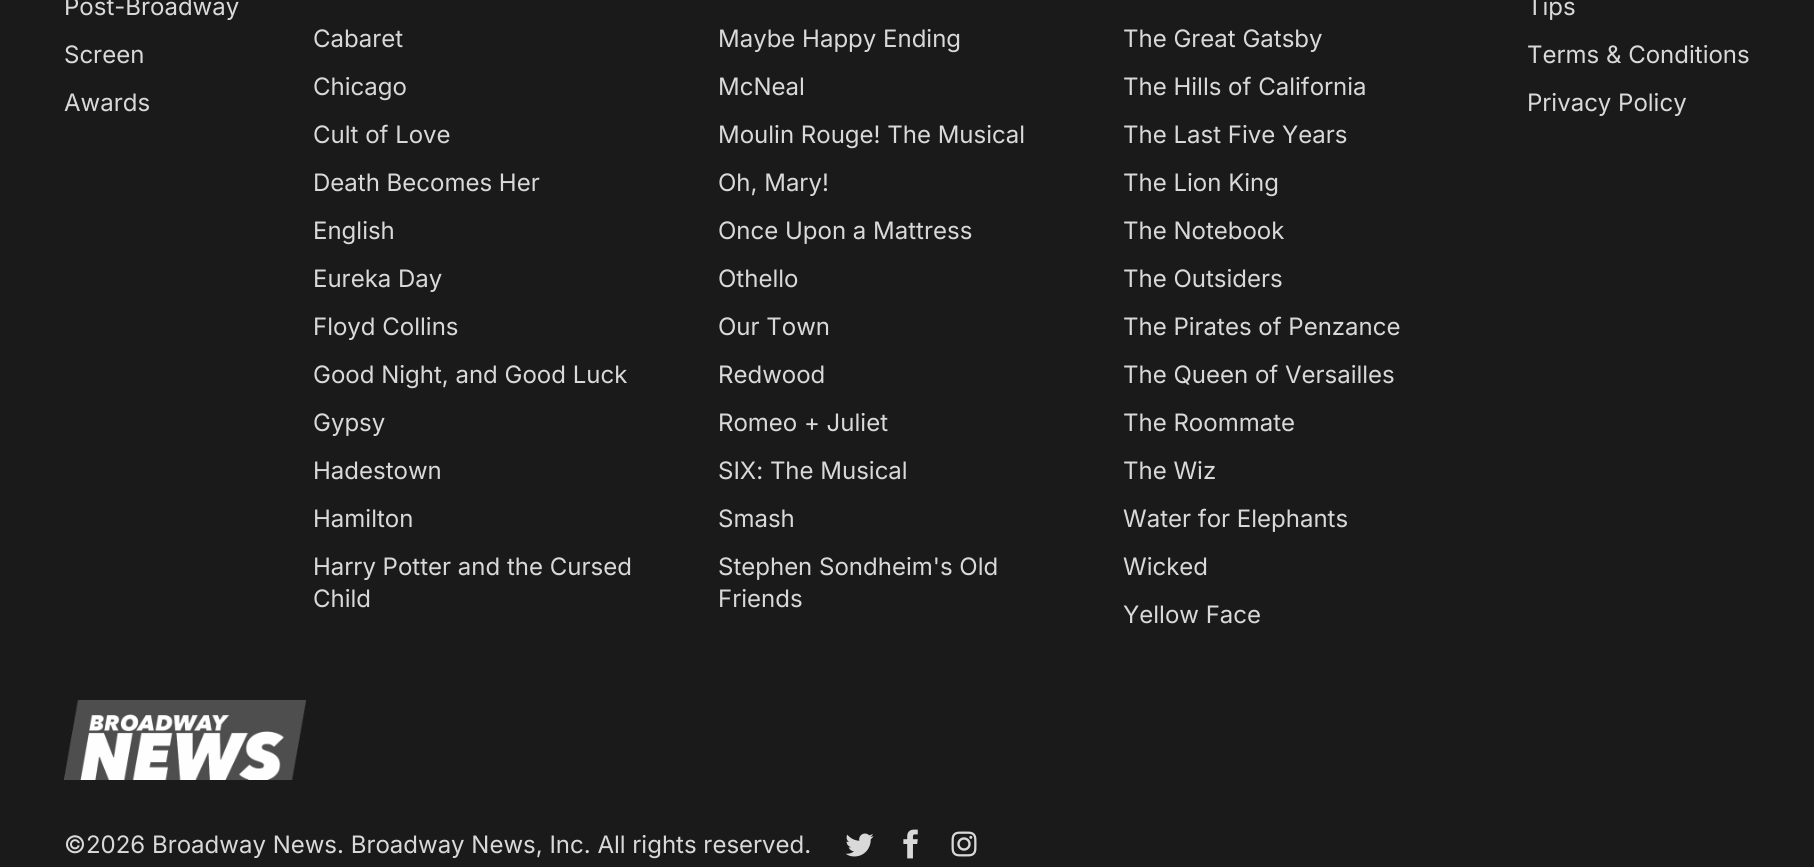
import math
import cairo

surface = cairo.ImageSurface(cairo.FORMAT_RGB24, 1814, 867)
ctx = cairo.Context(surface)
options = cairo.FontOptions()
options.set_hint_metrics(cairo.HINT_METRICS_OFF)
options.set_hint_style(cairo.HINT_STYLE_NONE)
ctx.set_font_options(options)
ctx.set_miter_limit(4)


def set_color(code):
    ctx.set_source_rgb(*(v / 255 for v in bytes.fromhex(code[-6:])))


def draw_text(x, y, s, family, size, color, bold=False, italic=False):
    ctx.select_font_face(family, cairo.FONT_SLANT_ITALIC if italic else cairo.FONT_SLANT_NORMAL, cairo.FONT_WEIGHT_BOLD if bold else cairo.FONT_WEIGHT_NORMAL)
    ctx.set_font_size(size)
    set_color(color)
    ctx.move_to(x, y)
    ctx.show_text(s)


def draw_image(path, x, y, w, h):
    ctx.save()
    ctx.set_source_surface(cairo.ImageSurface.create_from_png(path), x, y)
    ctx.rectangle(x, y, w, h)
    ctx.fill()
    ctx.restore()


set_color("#1a1a1a")
ctx.paint()
draw_text(64, 15, "Post-Broadway", "Inter", 24, "#d9d9d9")
draw_text(64, 63, "Screen", "Inter", 24, "#d9d9d9")
draw_text(64, 111, "Awards", "Inter", 24, "#d9d9d9")
draw_text(313, 47, "Cabaret", "Inter", 24, "#d9d9d9")
draw_text(718, 47, "Maybe Happy Ending", "Inter", 24, "#d9d9d9")
draw_text(1123, 47, "The Great Gatsby", "Inter", 24, "#d9d9d9")
draw_text(313, 95, "Chicago", "Inter", 24, "#d9d9d9")
draw_text(718, 95, "McNeal", "Inter", 24, "#d9d9d9")
draw_text(1123, 95, "The Hills of California", "Inter", 24, "#d9d9d9")
draw_text(313, 143, "Cult of Love", "Inter", 24, "#d9d9d9")
draw_text(718, 143, "Moulin Rouge! The Musical", "Inter", 24, "#d9d9d9")
draw_text(1123, 143, "The Last Five Years", "Inter", 24, "#d9d9d9")
draw_text(313, 191, "Death Becomes Her", "Inter", 24, "#d9d9d9")
draw_text(718, 191, "Oh, Mary!", "Inter", 24, "#d9d9d9")
draw_text(1123, 191, "The Lion King", "Inter", 24, "#d9d9d9")
draw_text(313, 239, "English", "Inter", 24, "#d9d9d9")
draw_text(718, 239, "Once Upon a Mattress", "Inter", 24, "#d9d9d9")
draw_text(1123, 239, "The Notebook", "Inter", 24, "#d9d9d9")
draw_text(313, 287, "Eureka Day", "Inter", 24, "#d9d9d9")
draw_text(718, 287, "Othello", "Inter", 24, "#d9d9d9")
draw_text(1123, 287, "The Outsiders", "Inter", 24, "#d9d9d9")
draw_text(313, 335, "Floyd Collins", "Inter", 24, "#d9d9d9")
draw_text(718, 335, "Our Town", "Inter", 24, "#d9d9d9")
draw_text(1123, 335, "The Pirates of Penzance", "Inter", 24, "#d9d9d9")
draw_text(313, 383, "Good Night, and Good Luck", "Inter", 24, "#d9d9d9")
draw_text(718, 383, "Redwood", "Inter", 24, "#d9d9d9")
draw_text(1123, 383, "The Queen of Versailles", "Inter", 24, "#d9d9d9")
draw_text(313, 431, "Gypsy", "Inter", 24, "#d9d9d9")
draw_text(718, 431, "Romeo + Juliet", "Inter", 24, "#d9d9d9")
draw_text(1123, 431, "The Roommate", "Inter", 24, "#d9d9d9")
draw_text(313, 479, "Hadestown", "Inter", 24, "#d9d9d9")
draw_text(718, 479, "SIX: The Musical", "Inter", 24, "#d9d9d9")
draw_text(1123, 479, "The Wiz", "Inter", 24, "#d9d9d9")
draw_text(313, 527, "Hamilton", "Inter", 24, "#d9d9d9")
draw_text(718, 527, "Smash", "Inter", 24, "#d9d9d9")
draw_text(1123, 527, "Water for Elephants", "Inter", 24, "#d9d9d9")
draw_text(313, 575, "Harry Potter and the Cursed", "Inter", 24, "#d9d9d9")
draw_text(313, 607, "Child", "Inter", 24, "#d9d9d9")
draw_text(718, 575, "Stephen Sondheim's Old", "Inter", 24, "#d9d9d9")
draw_text(718, 607, "Friends", "Inter", 24, "#d9d9d9")
draw_text(1123, 575, "Wicked", "Inter", 24, "#d9d9d9")
draw_text(1123, 623, "Yellow Face", "Inter", 24, "#d9d9d9")
draw_text(1527, 15, "Tips", "Inter", 24, "#d9d9d9")
draw_text(1527, 63, "Terms & Conditions", "Inter", 24, "#d9d9d9")
draw_text(1527, 111, "Privacy Policy", "Inter", 24, "#d9d9d9")
draw_image("assets/img1.png", 64, 700, 242, 80)
draw_text(64, 853, "©2026 Broadway News. Broadway News, Inc. All rights reserved.", "Inter", 24, "#d9d9d9")
draw_image("assets/img2.png", 845, 833, 29, 24)
draw_image("assets/img3.png", 903, 829, 15, 30)
draw_image("assets/img4.png", 951, 831, 26, 26)
surface.write_to_png("output.png")
